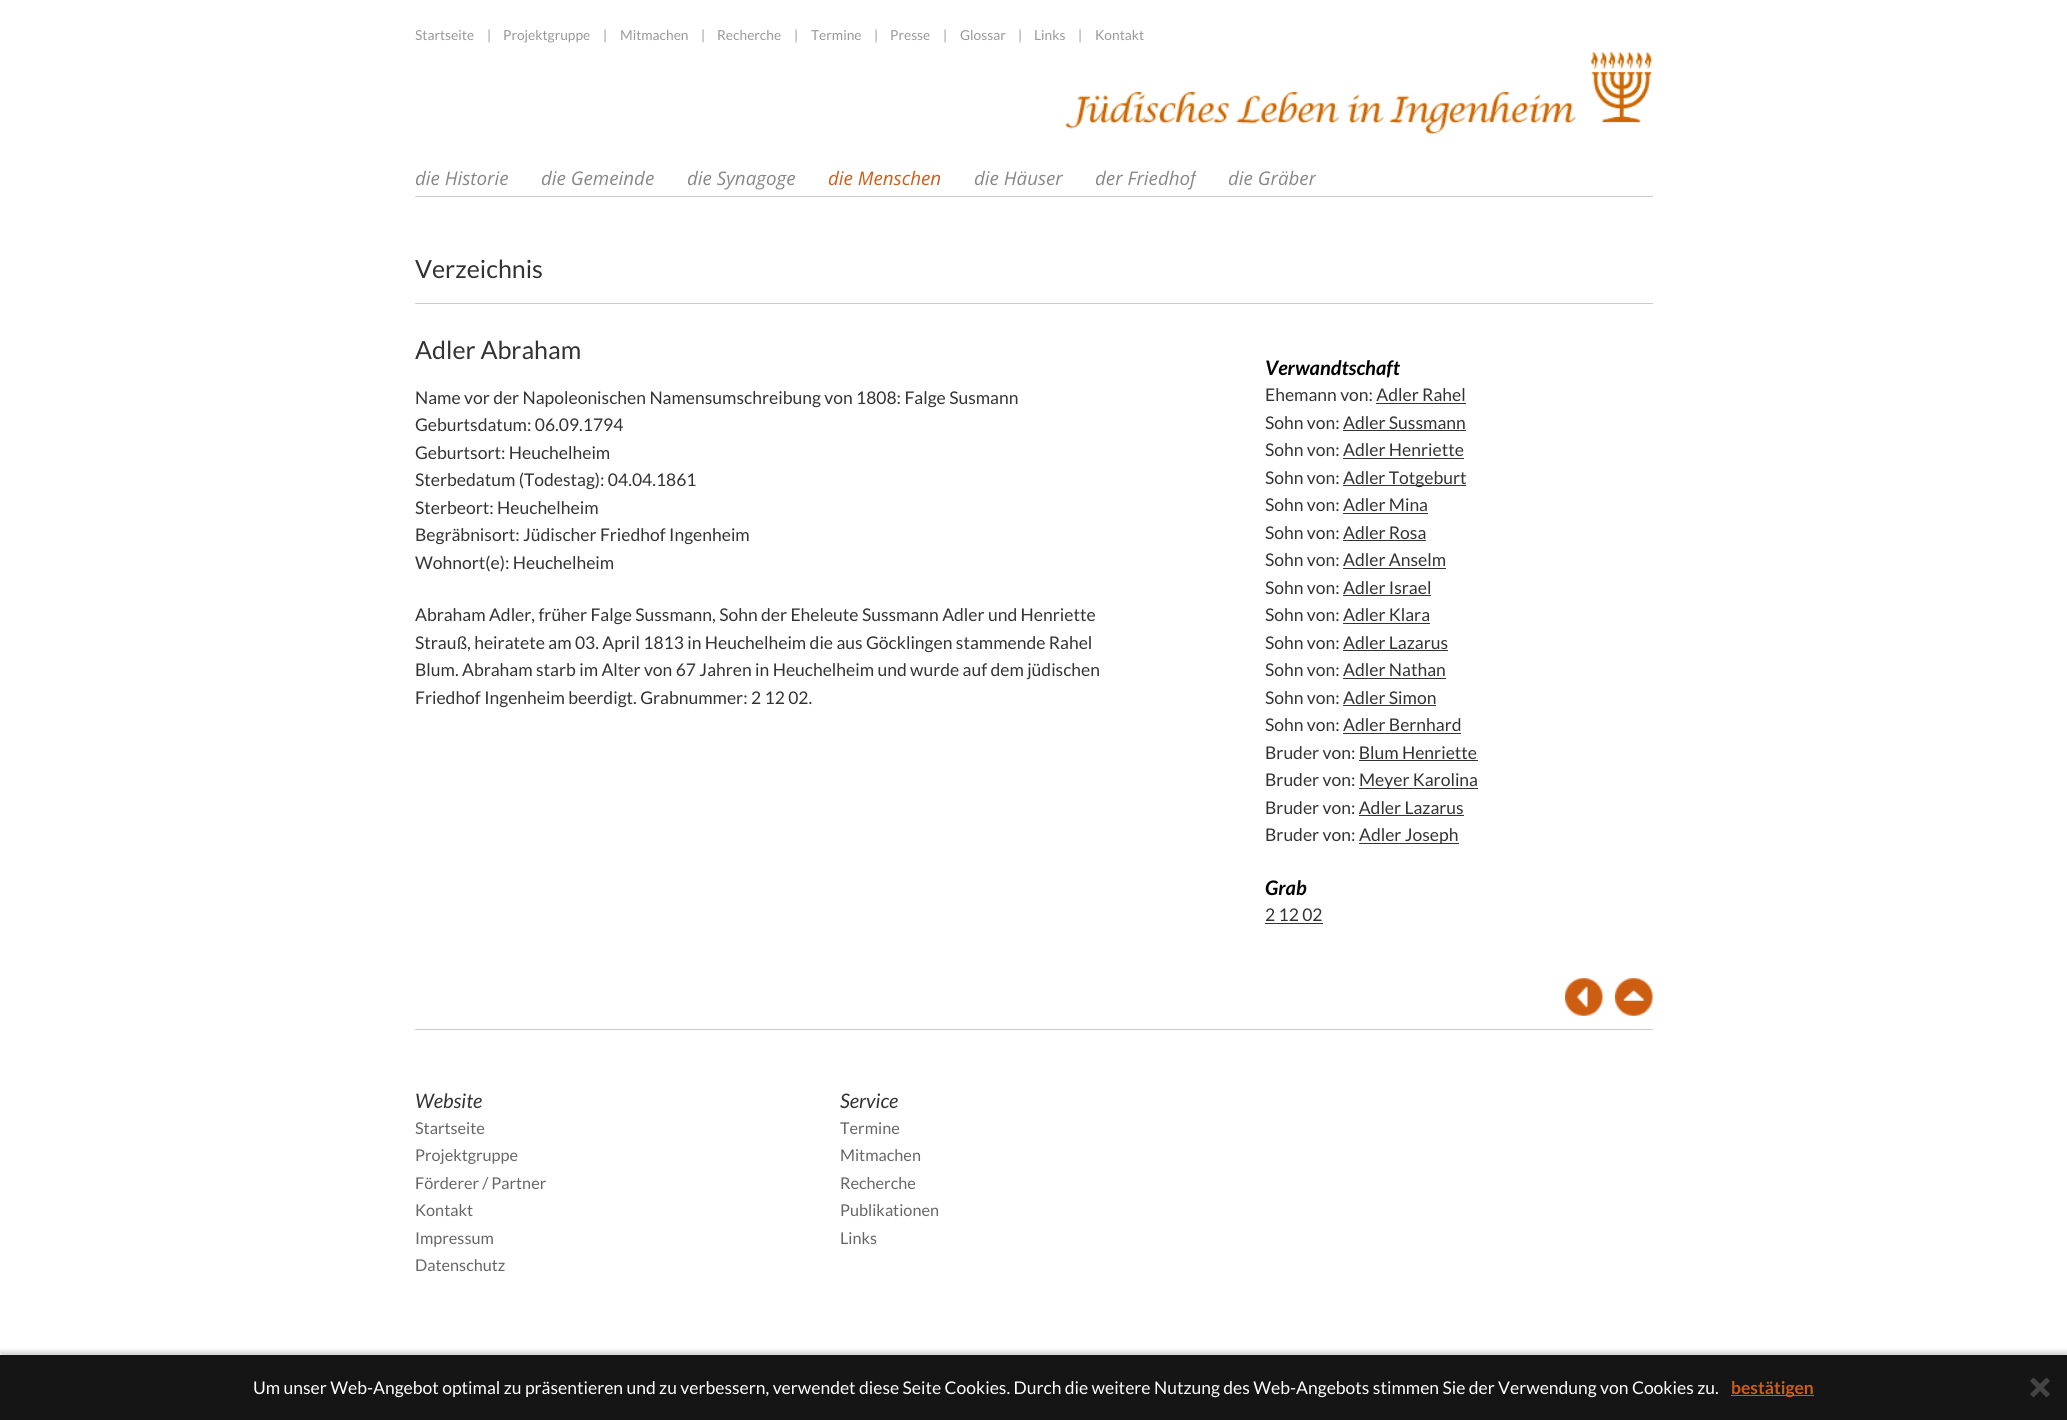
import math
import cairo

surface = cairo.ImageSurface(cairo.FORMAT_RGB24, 2067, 1420)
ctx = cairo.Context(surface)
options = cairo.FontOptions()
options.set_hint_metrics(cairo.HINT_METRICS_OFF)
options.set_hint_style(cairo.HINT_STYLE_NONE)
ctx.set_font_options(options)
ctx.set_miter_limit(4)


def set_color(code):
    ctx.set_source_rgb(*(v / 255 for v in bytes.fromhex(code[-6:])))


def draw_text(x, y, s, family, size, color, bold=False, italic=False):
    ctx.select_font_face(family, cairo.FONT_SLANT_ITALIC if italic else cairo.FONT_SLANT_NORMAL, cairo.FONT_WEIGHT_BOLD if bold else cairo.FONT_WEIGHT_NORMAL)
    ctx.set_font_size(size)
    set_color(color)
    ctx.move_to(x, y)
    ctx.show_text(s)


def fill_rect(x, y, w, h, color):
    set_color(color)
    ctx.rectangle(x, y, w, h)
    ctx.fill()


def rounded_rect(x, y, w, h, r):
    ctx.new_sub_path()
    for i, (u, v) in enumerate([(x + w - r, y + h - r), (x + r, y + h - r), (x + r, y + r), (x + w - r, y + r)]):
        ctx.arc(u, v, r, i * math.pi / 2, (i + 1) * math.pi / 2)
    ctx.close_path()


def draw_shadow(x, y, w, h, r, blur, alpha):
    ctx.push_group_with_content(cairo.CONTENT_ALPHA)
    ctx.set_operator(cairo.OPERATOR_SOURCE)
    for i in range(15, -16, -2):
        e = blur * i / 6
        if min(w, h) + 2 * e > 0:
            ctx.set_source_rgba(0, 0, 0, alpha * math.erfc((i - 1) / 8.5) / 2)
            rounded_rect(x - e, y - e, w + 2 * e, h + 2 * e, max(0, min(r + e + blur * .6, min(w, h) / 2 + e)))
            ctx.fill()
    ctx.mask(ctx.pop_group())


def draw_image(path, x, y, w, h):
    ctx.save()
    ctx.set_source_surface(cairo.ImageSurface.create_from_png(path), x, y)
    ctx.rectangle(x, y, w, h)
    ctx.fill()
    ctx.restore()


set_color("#ffffff")
ctx.paint()
draw_text(415, 40, "Startseite", "Lato", 13.75, "#999999")
draw_text(487, 40, "|", "Lato", 13.75, "#999999")
draw_text(503, 40, "Projektgruppe", "Lato", 13.75, "#999999")
draw_text(603, 40, "|", "Lato", 13.75, "#999999")
draw_text(620, 40, "Mitmachen", "Lato", 13.75, "#999999")
draw_text(701, 40, "|", "Lato", 13.75, "#999999")
draw_text(717, 40, "Recherche", "Lato", 13.75, "#999999")
draw_text(794, 40, "|", "Lato", 13.75, "#999999")
draw_text(811, 40, "Termine", "Lato", 13.75, "#999999")
draw_text(874, 40, "|", "Lato", 13.75, "#999999")
draw_text(890, 40, "Presse", "Lato", 13.75, "#999999")
draw_text(943, 40, "|", "Lato", 13.75, "#999999")
draw_text(960, 40, "Glossar", "Lato", 13.75, "#999999")
draw_text(1018, 40, "|", "Lato", 13.75, "#999999")
draw_text(1034, 40, "Links", "Lato", 13.75, "#999999")
draw_text(1078, 40, "|", "Lato", 13.75, "#999999")
draw_text(1095, 40, "Kontakt", "Lato", 13.75, "#999999")
draw_image("assets/img1.png", 1065, 51, 587, 83)
draw_text(415, 185, "die Historie", "Open Sans", 18.75, "#878787", italic=True)
draw_text(541, 185, "die Gemeinde", "Open Sans", 18.75, "#878787", italic=True)
draw_text(687, 185, "die Synagoge", "Open Sans", 18.75, "#878787", italic=True)
draw_text(828, 185, "die Menschen", "Open Sans", 18.75, "#cc5d17", italic=True)
draw_text(974, 185, "die Häuser", "Open Sans", 18.75, "#878787", italic=True)
ctx.save()
ctx.rectangle(1095, 159, 101, 37)
ctx.clip()
draw_text(1095, 185, "der Friedhof", "Open Sans", 18.75, "#878787", italic=True)
ctx.restore()
ctx.save()
ctx.rectangle(1229, 159, 87, 37)
ctx.clip()
draw_text(1228, 185, "die Gräber", "Open Sans", 18.75, "#878787", italic=True)
ctx.restore()
fill_rect(415, 196, 1238, 1, "#cccccc")
draw_text(415, 278, "Verzeichnis", "Lato", 25, "#333333")
fill_rect(415, 303, 1238, 1, "#cccccc")
draw_text(415, 359, "Adler Abraham", "Lato", 25, "#333333")
draw_text(415, 404, "Name vor der Napoleonischen Namensumschreibung von 1808: Falge Susmann", "Lato", 17.5, "#333333")
draw_text(415, 431, "Geburtsdatum: 06.09.1794", "Lato", 17.5, "#333333")
draw_text(415, 459, "Geburtsort: Heuchelheim", "Lato", 17.5, "#333333")
draw_text(415, 486, "Sterbedatum (Todestag): 04.04.1861", "Lato", 17.5, "#333333")
draw_text(415, 514, "Sterbeort: Heuchelheim", "Lato", 17.5, "#333333")
draw_text(415, 541, "Begräbnisort: Jüdischer Friedhof Ingenheim", "Lato", 17.5, "#333333")
draw_text(415, 569, "Wohnort(e): Heuchelheim", "Lato", 17.5, "#333333")
draw_text(415, 621, "Abraham Adler, früher Falge Sussmann, Sohn der Eheleute Sussmann Adler und Henriette", "Lato", 17.5, "#333333")
draw_text(415, 649, "Strauß, heiratete am 03. April 1813 in Heuchelheim die aus Göcklingen stammende Rahel", "Lato", 17.5, "#333333")
draw_text(415, 676, "Blum. Abraham starb im Alter von 67 Jahren in Heuchelheim und wurde auf dem jüdischen", "Lato", 17.5, "#333333")
draw_text(415, 704, "Friedhof Ingenheim beerdigt. Grabnummer: 2 12 02.", "Lato", 17.5, "#333333")
draw_text(1265, 375, "Verwandtschaft", "Lato", 20, "#000000", bold=True, italic=True)
draw_text(1265, 401, "Ehemann von: Adler Rahel", "Lato", 17.5, "#333333")
fill_rect(1376, 403, 90, 1, "#333333")
draw_text(1265, 429, "Sohn von: Adler Sussmann", "Lato", 17.5, "#333333")
fill_rect(1343, 430, 123, 1, "#333333")
draw_text(1265, 456, "Sohn von: Adler Henriette", "Lato", 17.5, "#333333")
fill_rect(1343, 458, 121, 1, "#333333")
draw_text(1265, 484, "Sohn von:", "Lato", 17.5, "#333333")
fill_rect(1343, 485, 123, 1, "#333333")
draw_text(1343, 484, "Adler Totgeburt", "Lato", 17.5, "#333333")
draw_text(1265, 511, "Sohn von: Adler Mina", "Lato", 17.5, "#333333")
fill_rect(1343, 513, 85, 1, "#333333")
draw_text(1265, 539, "Sohn von: Adler Rosa", "Lato", 17.5, "#333333")
fill_rect(1343, 540, 83, 1, "#333333")
draw_text(1265, 566, "Sohn von: Adler Anselm", "Lato", 17.5, "#333333")
fill_rect(1343, 568, 103, 1, "#333333")
draw_text(1265, 594, "Sohn von: Adler Israel", "Lato", 17.5, "#333333")
fill_rect(1343, 595, 88, 1, "#333333")
draw_text(1265, 621, "Sohn von: Adler Klara", "Lato", 17.5, "#333333")
fill_rect(1343, 623, 87, 1, "#333333")
draw_text(1265, 649, "Sohn von: Adler Lazarus", "Lato", 17.5, "#333333")
fill_rect(1343, 650, 105, 1, "#333333")
draw_text(1265, 676, "Sohn von: Adler Nathan", "Lato", 17.5, "#333333")
fill_rect(1343, 678, 103, 1, "#333333")
draw_text(1265, 704, "Sohn von: Adler Simon", "Lato", 17.5, "#333333")
fill_rect(1343, 705, 93, 1, "#333333")
draw_text(1265, 731, "Sohn von: Adler Bernhard", "Lato", 17.5, "#333333")
fill_rect(1343, 733, 118, 1, "#333333")
draw_text(1265, 759, "Bruder von: Blum Henriette", "Lato", 17.5, "#333333")
fill_rect(1359, 760, 119, 1, "#333333")
draw_text(1265, 786, "Bruder von:", "Lato", 17.5, "#333333")
fill_rect(1359, 788, 119, 1, "#333333")
draw_text(1359, 786, "Meyer Karolina", "Lato", 17.5, "#333333")
draw_text(1265, 814, "Bruder von: Adler Lazarus", "Lato", 17.5, "#333333")
fill_rect(1359, 815, 105, 1, "#333333")
draw_text(1265, 841, "Bruder von:", "Lato", 17.5, "#333333")
fill_rect(1359, 843, 100, 1, "#333333")
draw_text(1359, 841, "Adler Joseph", "Lato", 17.5, "#333333")
draw_text(1265, 895, "Grab", "Lato", 20, "#000000", bold=True, italic=True)
draw_text(1265, 921, "2 12 02", "Lato", 17.5, "#333333")
fill_rect(1265, 923, 58, 1, "#333333")
draw_image("assets/img2.png", 1565, 978, 38, 38)
draw_image("assets/img3.png", 1615, 978, 38, 38)
fill_rect(415, 1029, 1238, 1, "#cccccc")
draw_text(415, 1108, "Website", "Lato", 20, "#333333", italic=True)
draw_text(415, 1134, "Startseite", "Lato", 16.25, "#666666")
draw_text(415, 1161, "Projektgruppe", "Lato", 16.25, "#666666")
draw_text(415, 1189, "Förderer / Partner", "Lato", 16.25, "#666666")
draw_text(415, 1216, "Kontakt", "Lato", 16.25, "#666666")
draw_text(415, 1244, "Impressum", "Lato", 16.25, "#666666")
draw_text(415, 1271, "Datenschutz", "Lato", 16.25, "#666666")
draw_text(840, 1108, "Service", "Lato", 20, "#333333", italic=True)
draw_text(840, 1134, "Termine", "Lato", 16.25, "#666666")
draw_text(840, 1161, "Mitmachen", "Lato", 16.25, "#666666")
draw_text(840, 1189, "Recherche", "Lato", 16.25, "#666666")
draw_text(840, 1216, "Publikationen", "Lato", 16.25, "#666666")
draw_text(840, 1244, "Links", "Lato", 16.25, "#666666")
set_color("#000000")
draw_shadow(0, 1351, 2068, 65, 0, 2, 0.15)
fill_rect(0, 1355, 2067, 65, "#151515")
draw_text(253, 1394, "Um unser Web-Angebot optimal zu präsentieren und zu verbessern, verwendet diese Seite Cookies. Durch die weitere Nutzung des Web-Angebots stimmen Sie der Verwendung von Cookies zu.", "Lato", 17.5, "#ffffff")
fill_rect(1731, 1395, 83, 1, "#cc5d17")
draw_text(1731, 1394, "bestätigen", "Lato", 17.5, "#cc5d17", bold=True)
draw_image("assets/img4.png", 2030, 1378, 20, 20)
surface.write_to_png("output.png")
